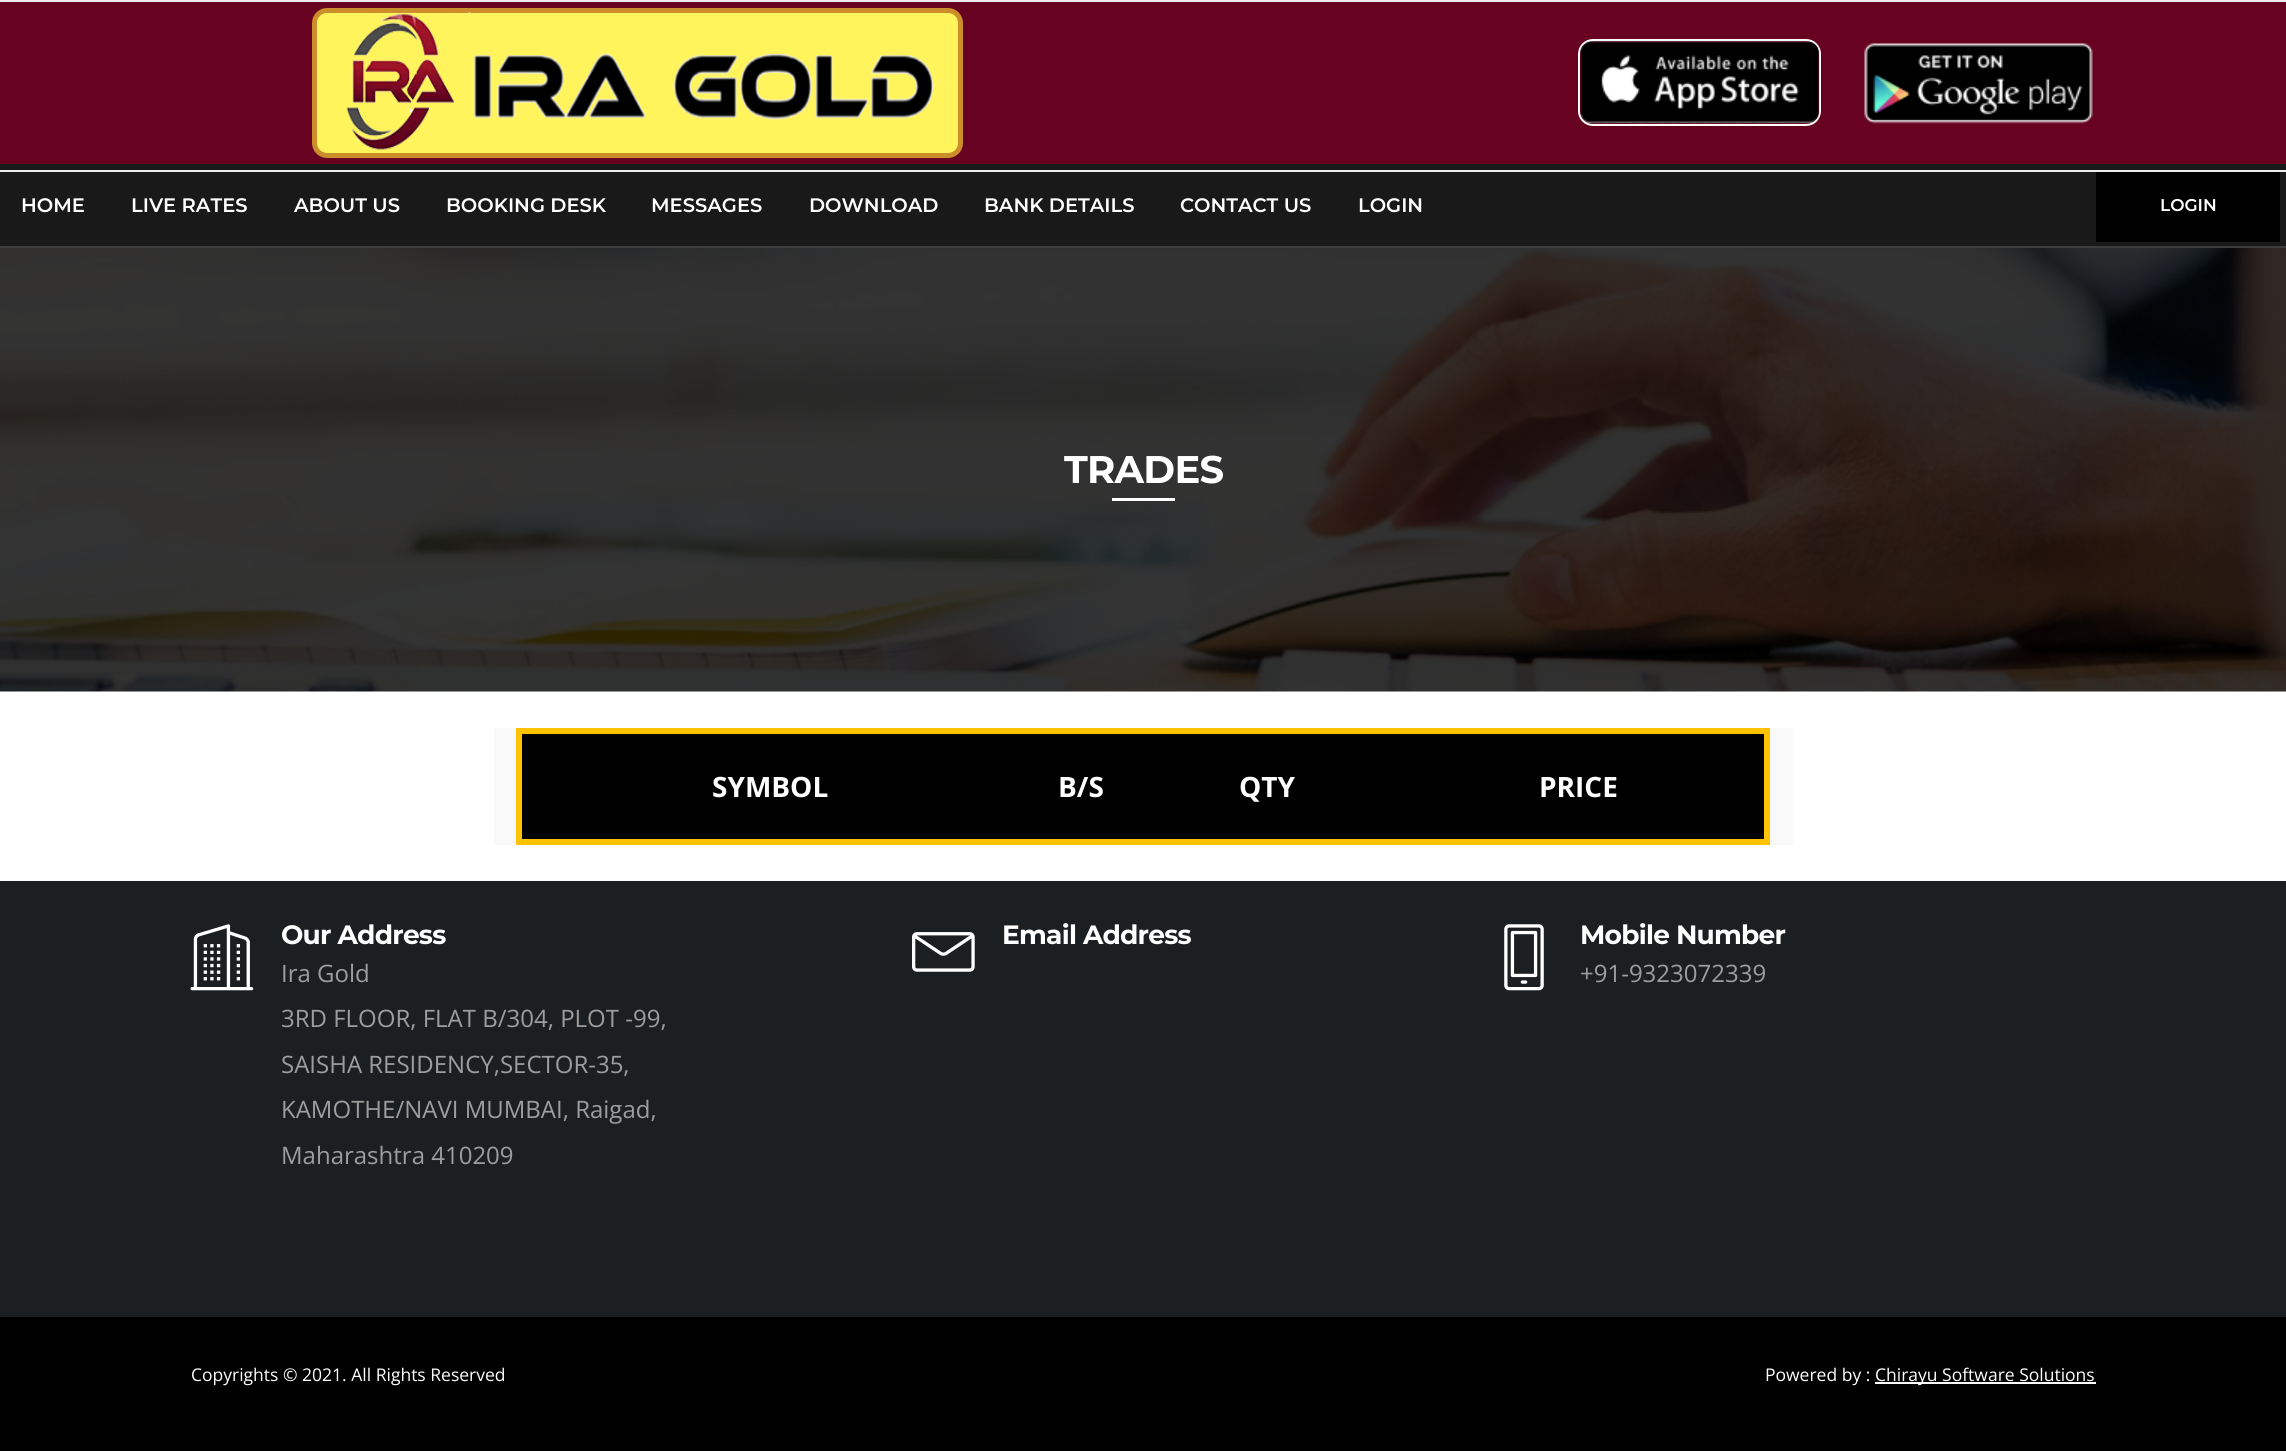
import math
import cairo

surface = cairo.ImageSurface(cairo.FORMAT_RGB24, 2286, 1451)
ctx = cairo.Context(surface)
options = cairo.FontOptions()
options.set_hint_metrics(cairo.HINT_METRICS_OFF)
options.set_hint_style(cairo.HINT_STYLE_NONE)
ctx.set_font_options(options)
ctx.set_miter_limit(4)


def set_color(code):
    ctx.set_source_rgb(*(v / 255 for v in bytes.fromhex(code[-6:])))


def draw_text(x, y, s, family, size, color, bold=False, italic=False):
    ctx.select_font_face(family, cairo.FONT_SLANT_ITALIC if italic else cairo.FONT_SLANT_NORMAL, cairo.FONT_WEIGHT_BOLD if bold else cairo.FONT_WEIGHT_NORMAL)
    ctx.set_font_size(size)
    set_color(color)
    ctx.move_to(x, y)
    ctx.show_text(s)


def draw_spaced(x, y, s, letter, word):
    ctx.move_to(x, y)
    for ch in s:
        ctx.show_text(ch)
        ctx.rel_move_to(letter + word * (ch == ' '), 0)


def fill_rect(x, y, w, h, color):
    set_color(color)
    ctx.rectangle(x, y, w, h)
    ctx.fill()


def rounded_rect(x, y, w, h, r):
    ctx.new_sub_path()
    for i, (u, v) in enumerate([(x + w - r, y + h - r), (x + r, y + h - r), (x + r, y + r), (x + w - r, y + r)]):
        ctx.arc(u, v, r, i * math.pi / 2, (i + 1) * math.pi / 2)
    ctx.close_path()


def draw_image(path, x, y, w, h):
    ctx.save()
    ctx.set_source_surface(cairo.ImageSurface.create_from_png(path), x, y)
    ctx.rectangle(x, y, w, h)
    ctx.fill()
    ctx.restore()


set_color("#000000")
ctx.paint()
fill_rect(0, 691, 2286, 190, "#ffffff")
fill_rect(0, 2, 2286, 162, "#670321")
fill_rect(0, 0, 2286, 2, "#ededee")
set_color("#fff45b")
rounded_rect(314.5, 10.5, 646, 145, 12.5)
ctx.fill_preserve()
set_color("#cb8e2a")
ctx.set_line_width(5)
ctx.stroke()
draw_image("assets/img1.png", 346, 12, 588, 138)
rounded_rect(1579, 40, 241, 85, 14)
set_color("#ffffff")
ctx.set_line_width(2)
ctx.stroke()
draw_image("assets/img2.png", 1579, 40, 241, 84)
draw_image("assets/img3.png", 1864, 43, 229, 81)
fill_rect(0, 164, 2286, 82, "#191919")
fill_rect(0, 170, 2286, 2, "#ededee")
draw_text(21, 212, "HOME", "Montserrat SemiBold", 19.5, "#ffffff")
draw_text(131, 212, "LIVE RATES", "Montserrat SemiBold", 19.5, "#ffffff")
draw_text(294, 212, "ABOUT US", "Montserrat SemiBold", 19.5, "#ffffff")
draw_text(446, 212, "BOOKING DESK", "Montserrat SemiBold", 19.5, "#ffffff")
draw_text(651, 212, "MESSAGES", "Montserrat SemiBold", 19.5, "#ffffff")
draw_text(809, 212, "DOWNLOAD", "Montserrat SemiBold", 19.5, "#ffffff")
draw_text(984, 212, "BANK DETAILS", "Montserrat SemiBold", 19.5, "#ffffff")
draw_text(1180, 212, "CONTACT US", "Montserrat SemiBold", 19.5, "#ffffff")
draw_text(1358, 212, "LOGIN", "Montserrat SemiBold", 19.5, "#ffffff")
fill_rect(2096, 172, 184, 70, "#000000")
draw_text(2160, 211, "LOGIN", "Montserrat SemiBold", 17, "#ffffff")
fill_rect(0, 246, 2286, 2, "#3d3d3d")
draw_image("assets/img4.png", 0, 248, 2286, 444)
ctx.select_font_face("Montserrat", cairo.FONT_SLANT_NORMAL, cairo.FONT_WEIGHT_BOLD)
ctx.set_font_size(38.5)
set_color("#ffffff")
draw_spaced(1064, 483, "TRADES", -0.75, 0)
fill_rect(1112, 498, 63, 3, "#ffffff")
fill_rect(494, 728, 1299, 117, "#f9f9f9")
set_color("#000000")
ctx.rectangle(519, 731, 1248, 111)
ctx.fill_preserve()
set_color("#ffc201")
ctx.set_line_width(6)
ctx.stroke()
draw_text(712, 797, "SYMBOL", "Open Sans", 28, "#ffffff", bold=True)
draw_text(1058, 797, "B/S", "Open Sans", 28, "#ffffff", bold=True)
draw_text(1239, 797, "QTY", "Open Sans", 28, "#ffffff", bold=True)
draw_text(1539, 797, "PRICE", "Open Sans", 28, "#ffffff", bold=True)
fill_rect(0, 881, 2286, 436, "#1c1f21")
draw_image("assets/img5.png", 190, 924, 64, 67)
ctx.select_font_face("Montserrat", cairo.FONT_SLANT_NORMAL, cairo.FONT_WEIGHT_BOLD)
ctx.set_font_size(26.5)
set_color("#ffffff")
draw_spaced(281, 944, "Our Address", -0.75, 0)
draw_text(281, 982, "Ira Gold", "Open Sans", 24, "#9e9d9d")
draw_text(281, 1027, "3RD FLOOR, FLAT B/304, PLOT -99,", "Open Sans", 24, "#9e9d9d")
draw_text(281, 1073, "SAISHA RESIDENCY,SECTOR-35,", "Open Sans", 24, "#9e9d9d")
draw_text(281, 1118, "KAMOTHE/NAVI MUMBAI, Raigad,", "Open Sans", 24, "#9e9d9d")
draw_text(281, 1164, "Maharashtra 410209", "Open Sans", 24, "#9e9d9d")
draw_image("assets/img6.png", 912, 932, 63, 40)
ctx.select_font_face("Montserrat", cairo.FONT_SLANT_NORMAL, cairo.FONT_WEIGHT_BOLD)
ctx.set_font_size(26.5)
set_color("#ffffff")
draw_spaced(1002, 944, "Email Address", -0.75, 0)
draw_image("assets/img7.png", 1504, 924, 40, 67)
draw_spaced(1580, 944, "Mobile Number", -0.75, 0)
draw_text(1580, 982, "+91-9323072339", "Open Sans", 24, "#9e9d9d")
draw_text(191, 1381, "Copyrights © 2021. All Rights Reserved", "Open Sans", 17.5, "#ffffff")
draw_text(1765, 1381, "Powered by :", "Open Sans", 17.5, "#ffffff")
fill_rect(1875, 1382, 221, 2, "#ffffff")
draw_text(1875, 1381, "Chirayu Software Solutions", "Open Sans", 17.5, "#ffffff")
surface.write_to_png("output.png")
